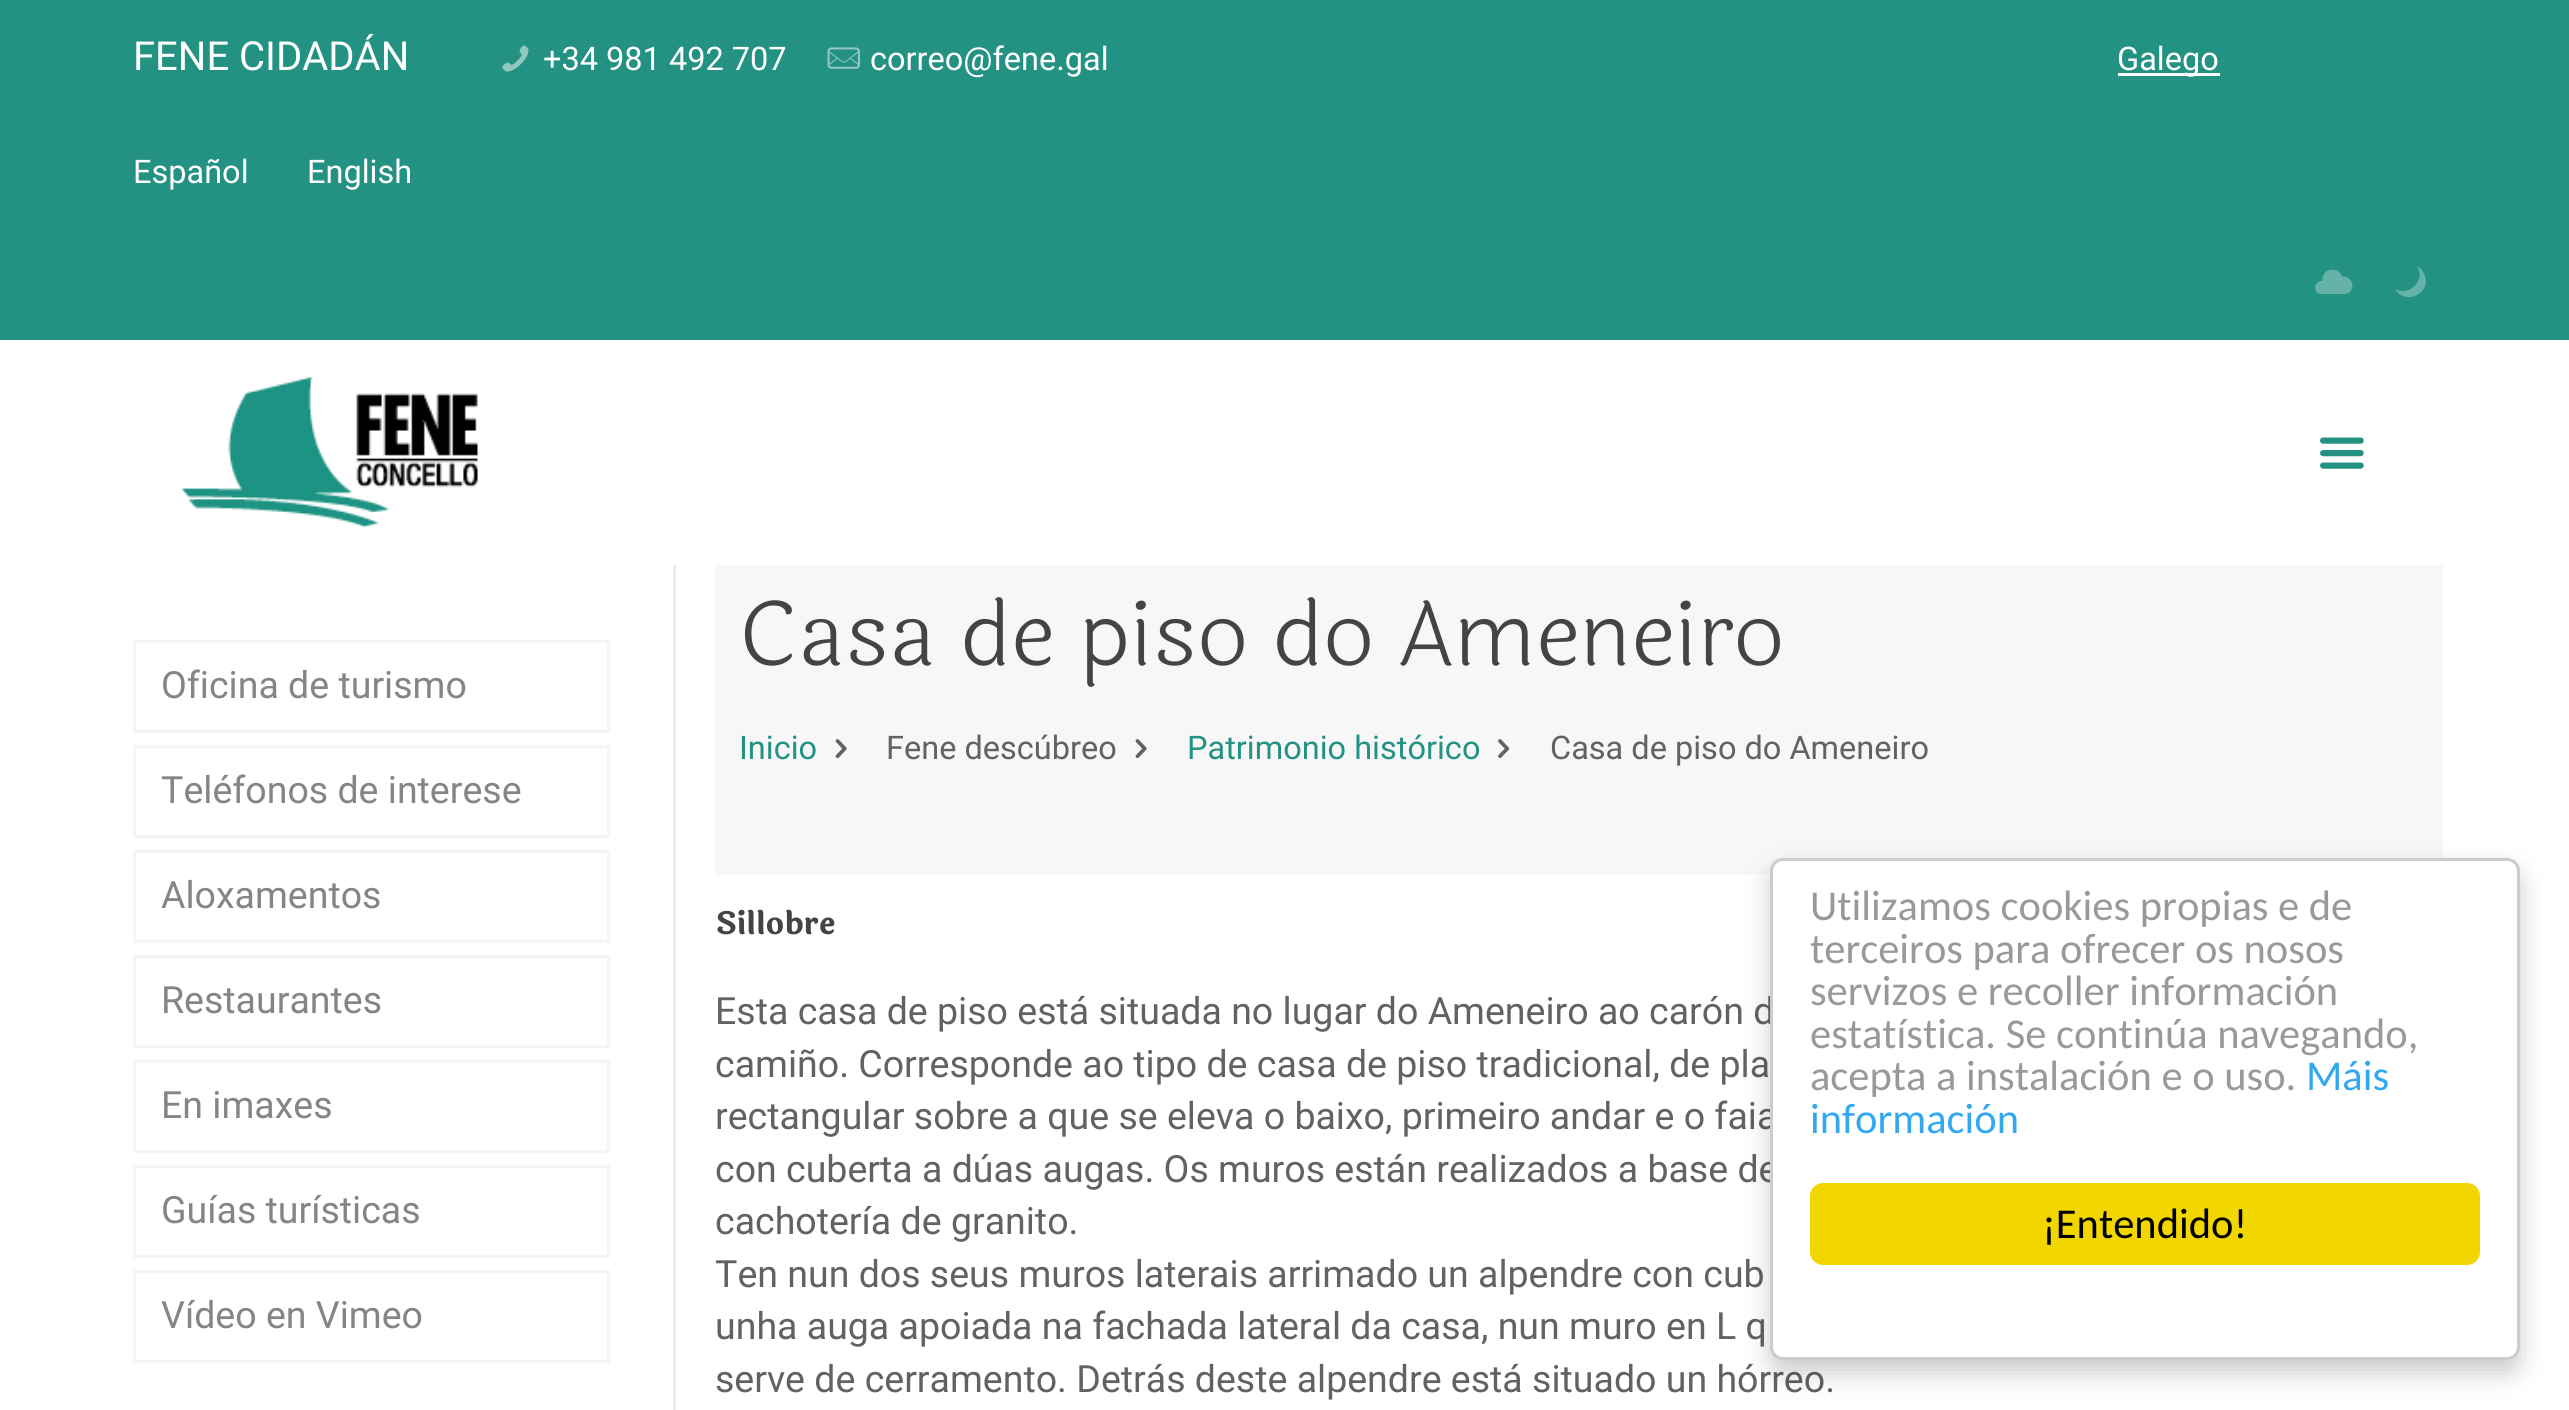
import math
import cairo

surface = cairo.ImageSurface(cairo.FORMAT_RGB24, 2569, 1410)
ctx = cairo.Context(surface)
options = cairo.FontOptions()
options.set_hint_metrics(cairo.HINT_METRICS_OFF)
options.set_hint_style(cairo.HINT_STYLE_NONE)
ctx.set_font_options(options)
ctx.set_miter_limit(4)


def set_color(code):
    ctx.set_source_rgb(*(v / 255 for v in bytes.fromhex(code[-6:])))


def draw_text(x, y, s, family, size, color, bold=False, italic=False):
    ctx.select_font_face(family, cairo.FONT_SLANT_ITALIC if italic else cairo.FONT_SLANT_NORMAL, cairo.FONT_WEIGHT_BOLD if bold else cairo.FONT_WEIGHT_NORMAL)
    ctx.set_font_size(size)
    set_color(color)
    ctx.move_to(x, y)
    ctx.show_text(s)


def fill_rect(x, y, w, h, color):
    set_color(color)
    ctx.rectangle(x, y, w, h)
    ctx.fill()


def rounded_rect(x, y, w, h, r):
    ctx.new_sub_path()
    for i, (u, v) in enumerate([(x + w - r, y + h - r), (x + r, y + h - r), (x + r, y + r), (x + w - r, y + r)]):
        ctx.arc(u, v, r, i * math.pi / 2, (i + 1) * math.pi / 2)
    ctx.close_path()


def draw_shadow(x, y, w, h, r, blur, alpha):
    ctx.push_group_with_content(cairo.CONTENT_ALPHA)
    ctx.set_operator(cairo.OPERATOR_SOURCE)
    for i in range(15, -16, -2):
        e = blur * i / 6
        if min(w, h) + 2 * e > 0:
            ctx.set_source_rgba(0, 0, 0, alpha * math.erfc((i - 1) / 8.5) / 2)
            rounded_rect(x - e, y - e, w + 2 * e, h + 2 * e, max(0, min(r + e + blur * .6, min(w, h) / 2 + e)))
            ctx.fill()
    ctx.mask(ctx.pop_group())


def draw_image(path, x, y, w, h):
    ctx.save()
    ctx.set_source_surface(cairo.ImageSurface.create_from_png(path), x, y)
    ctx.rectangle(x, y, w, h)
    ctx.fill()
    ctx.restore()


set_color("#ffffff")
ctx.paint()
fill_rect(0, 0, 2569, 340, "#239283")
draw_text(133, 70, "FENE CIDADÁN", "Roboto", 40, "#ffffff")
draw_image("assets/img1.png", 502, 45, 27, 27)
draw_text(543, 70, "+34 981 492 707", "Roboto", 32.5, "#ffffff")
draw_image("assets/img2.png", 827, 47, 33, 22)
draw_text(870, 70, "correo@fene.gal", "Roboto", 32.5, "#ffffff")
fill_rect(2118, 73, 102, 3, "#ffffff")
draw_text(2117, 70, "Galego", "Roboto", 32.5, "#ffffff")
draw_text(133, 183, "Español", "Roboto", 32.5, "#ffffff")
draw_text(307, 183, "English", "Roboto", 32.5, "#ffffff")
set_color("#65b3a8")
ctx.new_path()
ctx.move_to(2343.5, 276.5)
ctx.curve_to(2353, 276.5, 2356, 290, 2347, 293.5)
ctx.curve_to(2344.5, 294.5, 2342, 294, 2340, 294)
ctx.line_to(2320, 294)
ctx.curve_to(2312, 291.5, 2314.5, 280, 2322.5, 281)
ctx.curve_to(2320.5, 269, 2338.5, 265, 2342, 276.5)
ctx.close_path()
ctx.fill()
ctx.new_path()
ctx.move_to(2414.5, 286)
ctx.curve_to(2420, 281, 2421, 273, 2417.5, 266.5)
ctx.curve_to(2420.5, 268, 2423, 271, 2424.5, 274.5)
ctx.curve_to(2432.5, 293, 2405.5, 306.5, 2395, 289)
ctx.curve_to(2401.5, 292.5, 2409.5, 291, 2414.5, 286)
ctx.close_path()
ctx.fill()
draw_image("assets/img3.png", 182, 377, 296, 151)
draw_image("assets/img4.png", 2320, 437, 44, 32)
fill_rect(673, 565, 3, 845, "#ebebeb")
ctx.rectangle(134.5, 641.5, 474, 90)
set_color("#f5f5f5")
ctx.set_line_width(3)
ctx.stroke()
draw_text(161, 698, "Oficina de turismo", "Roboto", 37.5, "#858585")
ctx.rectangle(134.5, 746.5, 474, 90)
set_color("#f5f5f5")
ctx.stroke()
draw_text(161, 803, "Teléfonos de interese", "Roboto", 37.5, "#858585")
ctx.rectangle(134.5, 851.5, 474, 90)
set_color("#f5f5f5")
ctx.stroke()
draw_text(161, 908, "Aloxamentos", "Roboto", 37.5, "#858585")
ctx.rectangle(134.5, 956.5, 474, 90)
set_color("#f5f5f5")
ctx.stroke()
draw_text(161, 1013, "Restaurantes", "Roboto", 37.5, "#858585")
ctx.rectangle(134.5, 1061.5, 474, 90)
set_color("#f5f5f5")
ctx.stroke()
draw_text(161, 1118, "En imaxes", "Roboto", 37.5, "#858585")
ctx.rectangle(134.5, 1166.5, 474, 90)
set_color("#f5f5f5")
ctx.stroke()
draw_text(161, 1223, "Guías turísticas", "Roboto", 37.5, "#858585")
ctx.rectangle(134.5, 1271.5, 474, 90)
set_color("#f5f5f5")
ctx.stroke()
draw_text(161, 1328, "Vídeo en Vimeo", "Roboto", 37.5, "#858585")
fill_rect(715, 565, 1728, 310, "#f7f7f7")
draw_text(739, 665, "Casa de piso do Ameneiro", "Laila Light", 90, "#444444")
draw_text(739, 759, "Inicio", "Roboto", 32.5, "#239283")
draw_image("assets/img5.png", 835, 739, 12, 19)
draw_text(886, 759, "Fene descúbreo", "Roboto", 32.5, "#626262")
draw_image("assets/img5.png", 1135, 739, 12, 19)
draw_text(1187, 759, "Patrimonio histórico", "Roboto", 32.5, "#239283")
draw_image("assets/img6.png", 1498, 739, 12, 19)
draw_text(1550, 759, "Casa de piso do Ameneiro", "Roboto", 32.5, "#626262")
draw_text(715, 934, "Sillobre", "Laila", 31, "#444444", bold=True)
draw_text(715, 1024, "Esta casa de piso está situada no lugar do Ameneiro ao carón d", "Roboto", 37.5, "#626262")
draw_text(715, 1077, "camiño. Corresponde ao tipo de casa de piso tradicional, de pla", "Roboto", 37.5, "#626262")
draw_text(715, 1129, "rectangular sobre a que se eleva o baixo, primeiro andar e o faia", "Roboto", 37.5, "#626262")
draw_text(715, 1182, "con cuberta a dúas augas. Os muros están realizados a base de", "Roboto", 37.5, "#626262")
draw_text(715, 1234, "cachotería de granito.", "Roboto", 37.5, "#626262")
draw_text(715, 1287, "Ten nun dos seus muros laterais arrimado un alpendre con cub", "Roboto", 37.5, "#626262")
draw_text(715, 1339, "unha auga apoiada na fachada lateral da casa, nun muro en L q", "Roboto", 37.5, "#626262")
draw_text(715, 1392, "serve de cerramento. Detrás deste alpendre está situado un hórreo.", "Roboto", 37.5, "#626262")
set_color("#000000")
draw_shadow(1770, 870, 750, 503, 13, 12.5, 0.2)
set_color("#ffffff")
rounded_rect(1771.5, 859.5, 747, 499, 11.5)
ctx.fill_preserve()
set_color("#cccccc")
ctx.stroke()
draw_text(1810, 920, "Utilizamos cookies propias e de", "Carlito", 42.5, "#999999")
draw_text(1810, 963, "terceiros para ofrecer os nosos", "Carlito", 42.5, "#999999")
draw_text(1810, 1005, "servizos e recoller información", "Carlito", 42.5, "#999999")
draw_text(1810, 1048, "estatística. Se continúa navegando,", "Carlito", 42.5, "#999999")
draw_text(1810, 1090, "acepta a instalación e o uso.", "Carlito", 42.5, "#999999")
draw_text(2306, 1090, "Máis", "Carlito", 42.5, "#31a8f0")
draw_text(1810, 1133, "información", "Carlito", 42.5, "#31a8f0")
set_color("#f1d600")
rounded_rect(1810, 1183, 670, 82, 13)
ctx.fill()
draw_text(2042, 1238, "¡Entendido!", "Carlito", 42.5, "#000000")
surface.write_to_png("output.png")
